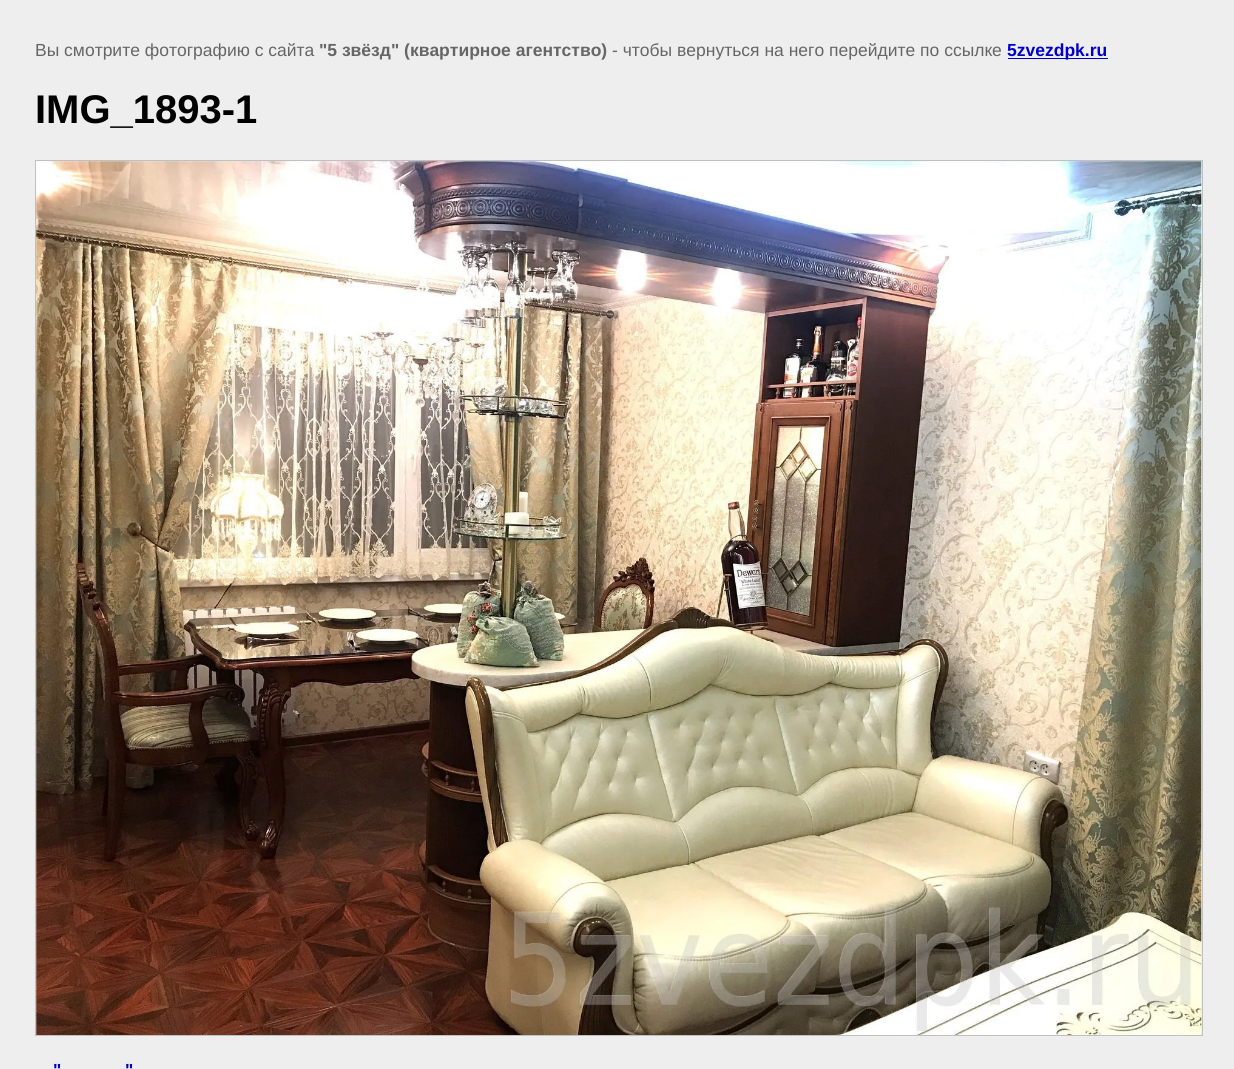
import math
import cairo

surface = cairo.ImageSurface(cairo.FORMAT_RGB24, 1234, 1069)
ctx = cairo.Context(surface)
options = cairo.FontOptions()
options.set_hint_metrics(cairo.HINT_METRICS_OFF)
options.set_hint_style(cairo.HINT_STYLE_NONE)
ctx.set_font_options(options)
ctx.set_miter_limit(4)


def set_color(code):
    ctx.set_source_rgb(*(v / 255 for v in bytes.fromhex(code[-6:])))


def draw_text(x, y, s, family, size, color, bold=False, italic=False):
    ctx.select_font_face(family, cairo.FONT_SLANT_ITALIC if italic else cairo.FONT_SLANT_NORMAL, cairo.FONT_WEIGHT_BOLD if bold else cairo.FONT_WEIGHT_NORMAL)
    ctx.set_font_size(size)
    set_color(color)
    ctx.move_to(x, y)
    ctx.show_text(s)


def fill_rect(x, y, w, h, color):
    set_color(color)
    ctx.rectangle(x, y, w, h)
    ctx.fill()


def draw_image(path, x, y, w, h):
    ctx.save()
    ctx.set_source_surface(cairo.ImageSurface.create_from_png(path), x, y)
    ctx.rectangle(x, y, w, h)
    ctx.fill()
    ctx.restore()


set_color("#eeeeee")
ctx.paint()
draw_text(35, 56, "Вы смотрите фотографию с сайта", "Liberation Sans", 17.5, "#666666")
draw_text(319, 56, "\"5 звёзд\" (квартирное агентство)", "Liberation Sans", 17.5, "#666666", bold=True)
draw_text(612, 56, "- чтобы вернуться на него перейдите по ссылке", "Liberation Sans", 17.5, "#666666")
fill_rect(1008, 58, 100, 1, "#0000cc")
draw_text(1007, 56, "5zvezdpk.ru", "Liberation Sans", 17.5, "#0000cc", bold=True)
draw_text(35, 123, "IMG_1893-1", "Liberation Sans", 40, "#000000", bold=True)
ctx.rectangle(35.5, 160.5, 1167, 875)
set_color("#c0c0c0")
ctx.set_line_width(1)
ctx.stroke()
draw_image("assets/img1.png", 36, 161, 1166, 874)
draw_text(53, 1076, "\"", "Liberation Sans", 17.5, "#0000cc", bold=True)
draw_text(125, 1076, "\"", "Liberation Sans", 17.5, "#0000cc", bold=True)
surface.write_to_png("output.png")
